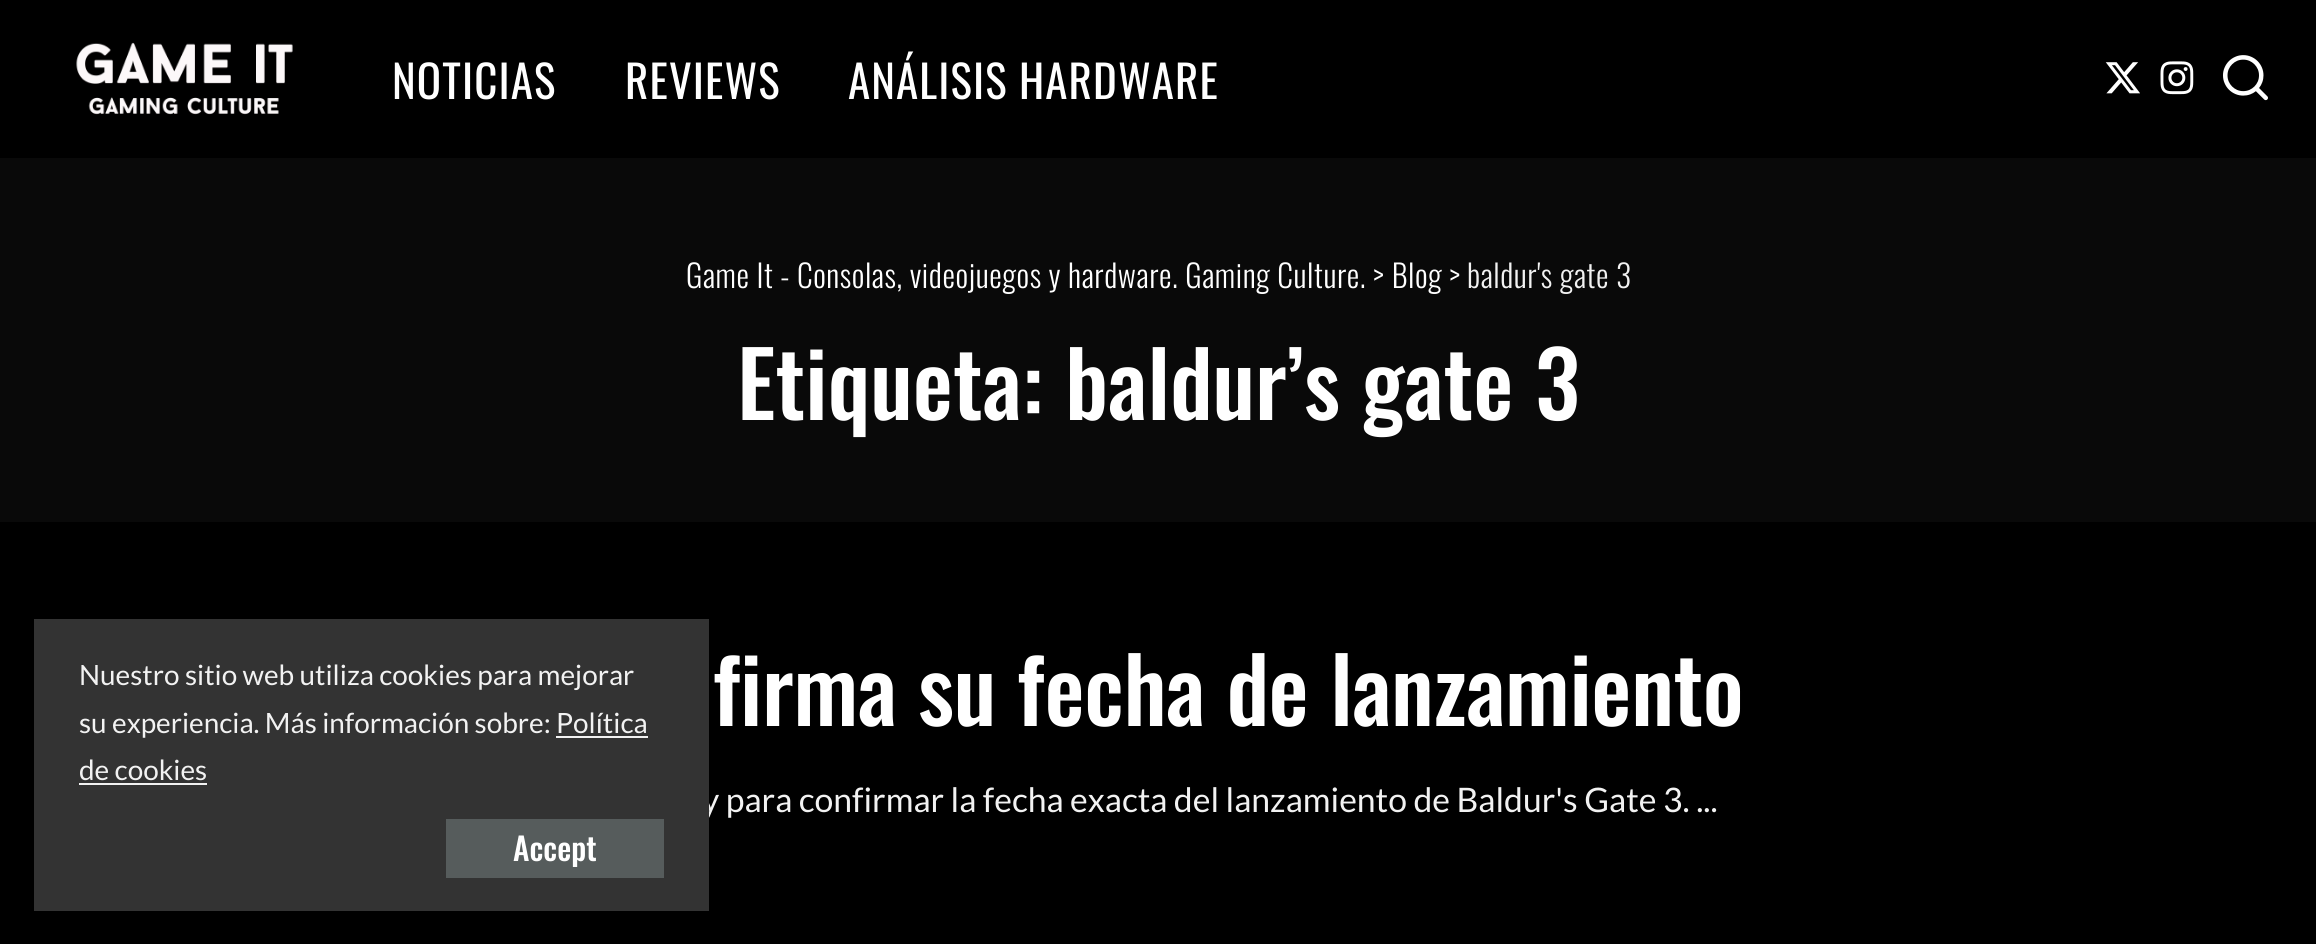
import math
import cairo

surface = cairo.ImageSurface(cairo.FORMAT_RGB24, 2316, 944)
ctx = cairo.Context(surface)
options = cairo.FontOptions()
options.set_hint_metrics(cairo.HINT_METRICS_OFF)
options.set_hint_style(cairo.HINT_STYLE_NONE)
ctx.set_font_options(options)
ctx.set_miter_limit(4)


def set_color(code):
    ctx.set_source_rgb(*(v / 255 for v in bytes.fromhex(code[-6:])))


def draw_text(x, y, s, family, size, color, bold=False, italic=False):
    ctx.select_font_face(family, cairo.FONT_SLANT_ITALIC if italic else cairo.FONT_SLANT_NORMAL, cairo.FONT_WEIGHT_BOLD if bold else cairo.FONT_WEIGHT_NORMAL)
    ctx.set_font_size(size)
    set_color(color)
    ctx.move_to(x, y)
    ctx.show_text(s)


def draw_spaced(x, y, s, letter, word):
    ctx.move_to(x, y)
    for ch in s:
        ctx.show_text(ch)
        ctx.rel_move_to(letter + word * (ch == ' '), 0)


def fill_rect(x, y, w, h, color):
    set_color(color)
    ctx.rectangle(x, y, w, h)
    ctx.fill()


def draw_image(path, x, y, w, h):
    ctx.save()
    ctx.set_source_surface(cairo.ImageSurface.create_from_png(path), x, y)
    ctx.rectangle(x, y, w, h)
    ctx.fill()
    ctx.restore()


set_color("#000000")
ctx.paint()
draw_text(702, 812, "y para confirmar la fecha exacta del lanzamiento de Baldur's Gate 3. ...", "Lato", 33.75, "#f2f2f2")
fill_rect(34, 619, 675, 292, "#333333")
draw_text(79, 685, "Nuestro sitio web utiliza cookies para mejorar", "Lato", 27.9, "#f2f2f2")
draw_text(79, 733, "su experiencia. Más información sobre:", "Lato", 27.9, "#f2f2f2")
draw_text(556, 733, "Política", "Lato", 27.9, "#f2f2f2")
fill_rect(556, 736, 92, 2, "#f2f2f2")
draw_text(79, 780, "de cookies", "Lato", 27.9, "#f2f2f2")
fill_rect(79, 783, 128, 2, "#f2f2f2")
fill_rect(446, 819, 218, 59, "#565c5c")
draw_text(513, 861, "Accept", "Oswald Medium", 31.5, "#ffffff")
draw_image("assets/img1.png", 76, 42, 217, 73)
ctx.select_font_face("Oswald")
ctx.set_font_size(45)
draw_spaced(392, 99, "NOTICIAS", 1.1, 0)
draw_spaced(625, 99, "REVIEWS", 1.1, 0)
draw_spaced(848, 99, "ANÁLISIS HARDWARE", 1.1, 0)
draw_image("assets/img2.png", 2105, 62, 35, 32)
draw_image("assets/img3.png", 2160, 61, 34, 34)
draw_image("assets/img4.png", 2223, 55, 45, 46)
fill_rect(0, 158, 2316, 364, "#090909")
ctx.select_font_face("Oswald Light")
ctx.set_font_size(31.5)
set_color("#ffffff")
draw_spaced(686, 288, "Game It - Consolas, videojuegos y hardware. Gaming Culture. > Blog >", 0.55, 0)
set_color("#f2f2f2")
draw_spaced(1467, 288, "baldur's gate 3", 0.55, 0)
draw_text(737, 420, "Etiqueta: baldur’s gate 3", "Oswald Medium", 90, "#ffffff")
draw_spaced(713, 726, "firma su fecha de lanzamiento", -0.35, 0)
surface.write_to_png("output.png")
